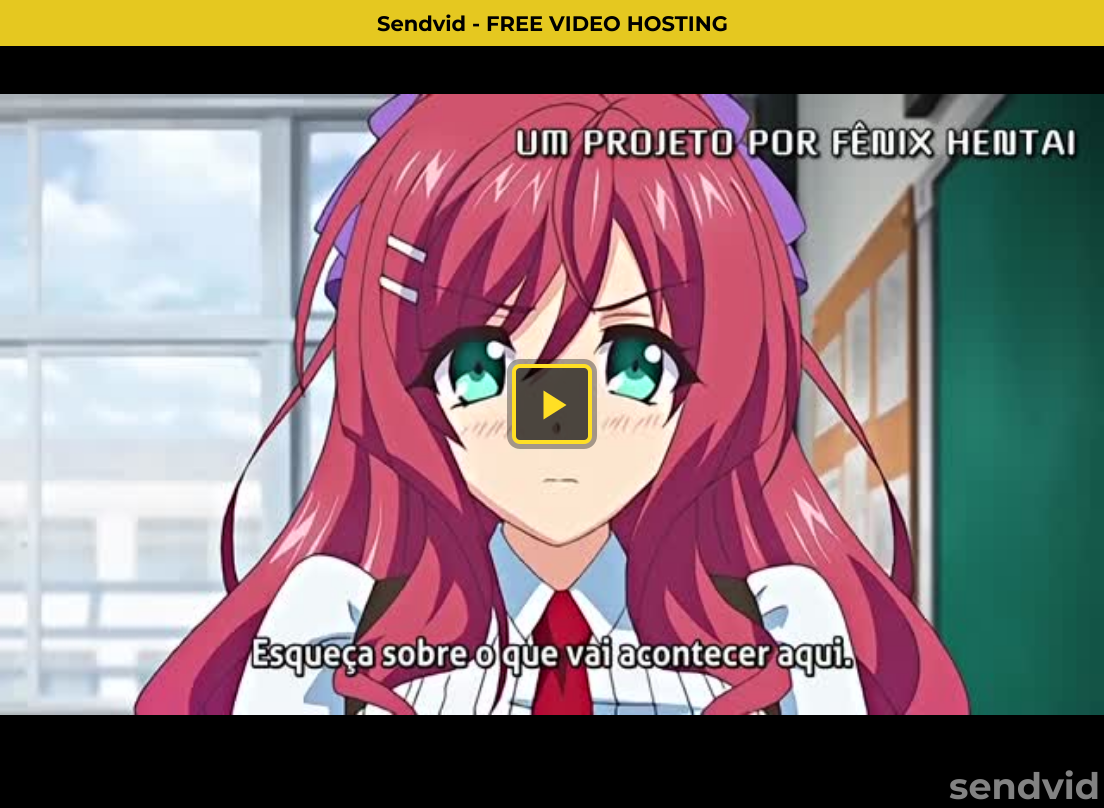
import math
import cairo

surface = cairo.ImageSurface(cairo.FORMAT_RGB24, 1104, 808)
ctx = cairo.Context(surface)
options = cairo.FontOptions()
options.set_hint_metrics(cairo.HINT_METRICS_OFF)
options.set_hint_style(cairo.HINT_STYLE_NONE)
ctx.set_font_options(options)
ctx.set_miter_limit(4)


def set_color(code):
    ctx.set_source_rgb(*(v / 255 for v in bytes.fromhex(code[-6:])))


def draw_text(x, y, s, family, size, color, bold=False, italic=False):
    ctx.select_font_face(family, cairo.FONT_SLANT_ITALIC if italic else cairo.FONT_SLANT_NORMAL, cairo.FONT_WEIGHT_BOLD if bold else cairo.FONT_WEIGHT_NORMAL)
    ctx.set_font_size(size)
    set_color(color)
    ctx.move_to(x, y)
    ctx.show_text(s)


def fill_rect(x, y, w, h, color):
    set_color(color)
    ctx.rectangle(x, y, w, h)
    ctx.fill()


def rounded_rect(x, y, w, h, r):
    ctx.new_sub_path()
    for i, (u, v) in enumerate([(x + w - r, y + h - r), (x + r, y + h - r), (x + r, y + r), (x + w - r, y + r)]):
        ctx.arc(u, v, r, i * math.pi / 2, (i + 1) * math.pi / 2)
    ctx.close_path()


def draw_image(path, x, y, w, h):
    ctx.save()
    ctx.set_source_surface(cairo.ImageSurface.create_from_png(path), x, y)
    ctx.rectangle(x, y, w, h)
    ctx.fill()
    ctx.restore()


set_color("#000000")
ctx.paint()
fill_rect(0, 0, 1104, 46, "#e5c820")
draw_text(377, 31, "Sendvid - FREE VIDEO HOSTING", "Montserrat", 21, "#000000", bold=True)
draw_image("assets/img1.png", 0, 94, 1104, 621)
ctx.set_source_rgba(0, 0, 0, 0.7)
rounded_rect(514, 366, 76, 76, 6)
ctx.fill_preserve()
set_color("#ffdf24")
ctx.set_line_width(4)
ctx.stroke()
rounded_rect(509.5, 361.5, 85, 85, 10.5)
ctx.set_source_rgba(0, 0, 0, 0.35)
ctx.set_line_width(5)
ctx.stroke()
set_color("#ffdf24")
ctx.new_path()
ctx.move_to(543.5, 390.5)
ctx.line_to(543.5, 419.5)
ctx.line_to(566.5, 405)
ctx.close_path()
ctx.fill()
draw_text(949, 799, "sendvid", "Montserrat", 36.5, "#828282", bold=True)
surface.write_to_png("output.png")
